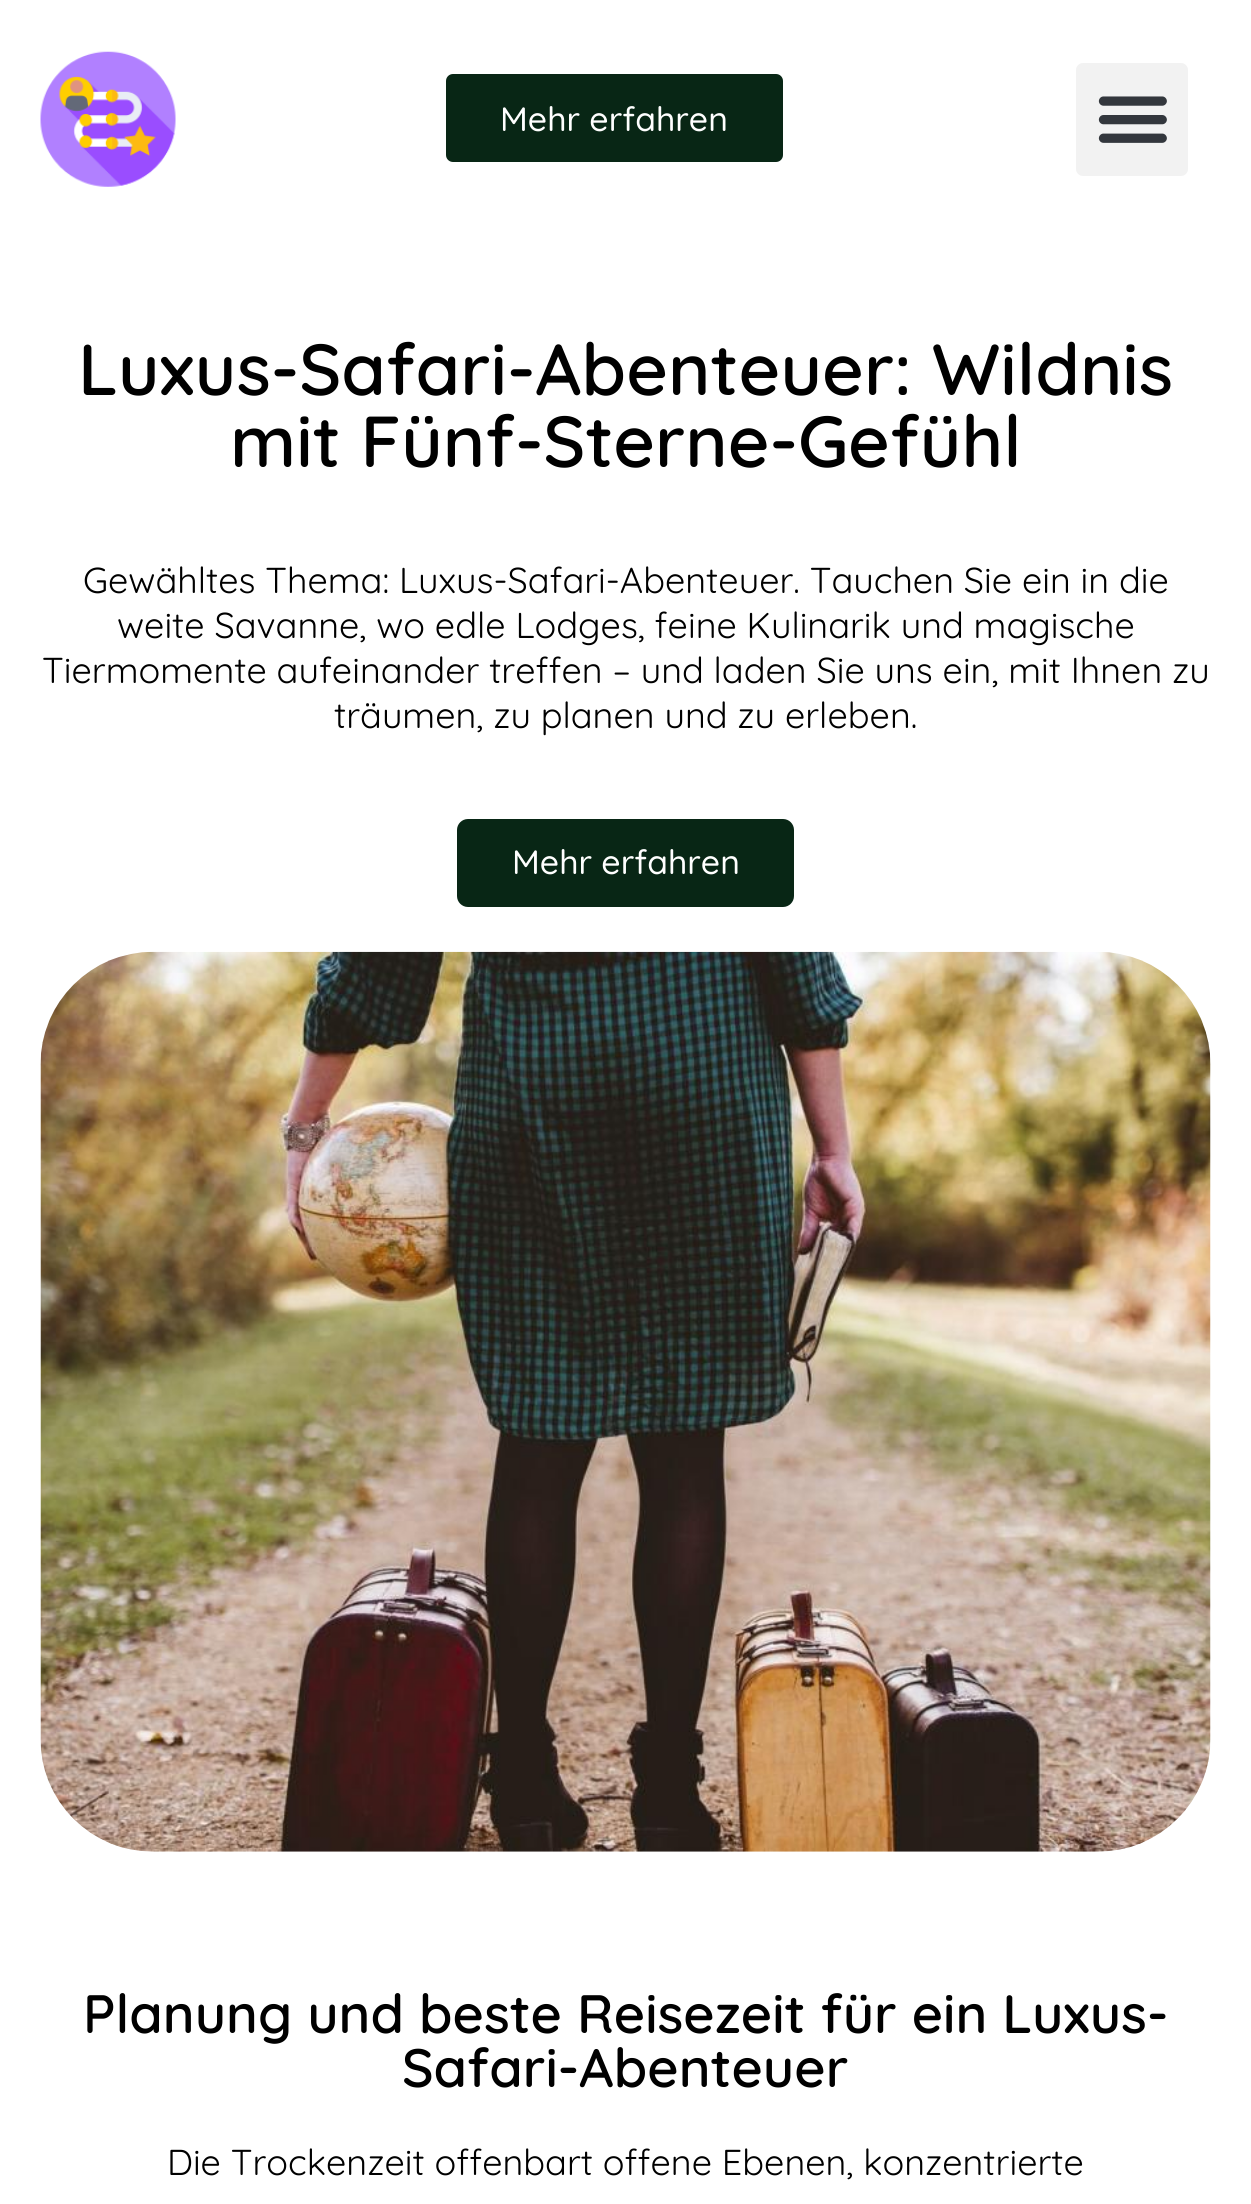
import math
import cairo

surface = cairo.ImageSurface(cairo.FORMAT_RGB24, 1251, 2204)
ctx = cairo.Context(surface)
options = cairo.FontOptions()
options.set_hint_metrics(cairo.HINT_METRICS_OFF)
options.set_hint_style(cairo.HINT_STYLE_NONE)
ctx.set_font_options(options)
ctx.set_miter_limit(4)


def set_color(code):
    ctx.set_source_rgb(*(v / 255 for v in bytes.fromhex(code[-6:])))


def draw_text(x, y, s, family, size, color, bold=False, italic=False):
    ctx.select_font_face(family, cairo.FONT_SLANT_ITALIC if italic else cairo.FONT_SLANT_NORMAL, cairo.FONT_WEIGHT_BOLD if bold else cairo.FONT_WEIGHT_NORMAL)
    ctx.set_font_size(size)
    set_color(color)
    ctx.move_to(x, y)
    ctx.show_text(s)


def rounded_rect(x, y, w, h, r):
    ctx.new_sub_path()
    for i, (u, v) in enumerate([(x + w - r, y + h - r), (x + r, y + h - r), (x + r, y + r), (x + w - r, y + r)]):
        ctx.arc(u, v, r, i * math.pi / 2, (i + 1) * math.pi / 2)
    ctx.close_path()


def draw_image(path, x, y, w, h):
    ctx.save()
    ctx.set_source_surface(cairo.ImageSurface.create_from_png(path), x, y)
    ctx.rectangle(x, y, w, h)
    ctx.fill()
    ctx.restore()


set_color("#ffffff")
ctx.paint()
draw_image("assets/img1.png", 40, 51, 136, 136)
set_color("#082615")
rounded_rect(446, 74, 337, 88, 7)
ctx.fill()
draw_text(500, 131, "Mehr erfahren", "Quicksand Medium", 33.75, "#ffffff")
set_color("#f2f2f2")
rounded_rect(1076, 63, 112, 113, 7)
ctx.fill()
draw_image("assets/img2.png", 1098, 96, 69, 47)
draw_text(78, 395, "Luxus-Safari-Abenteuer: Wildnis", "Quicksand SemiBold", 72, "#000000")
draw_text(230, 467, "mit Fünf-Sterne-Gefühl", "Quicksand SemiBold", 72, "#000000")
draw_text(83, 593, "Gewähltes Thema: Luxus-Safari-Abenteuer. Tauchen Sie ein in die", "Quicksand", 36, "#000000")
draw_text(117, 638, "weite Savanne, wo edle Lodges, feine Kulinarik und magische", "Quicksand", 36, "#000000")
draw_text(42, 683, "Tiermomente aufeinander treffen – und laden Sie uns ein, mit Ihnen zu", "Quicksand", 36, "#000000")
draw_text(334, 728, "träumen, zu planen und zu erleben.", "Quicksand", 36, "#000000")
set_color("#082615")
rounded_rect(457, 819, 337, 88, 11)
ctx.fill()
draw_text(512, 874, "Mehr erfahren", "Quicksand Medium", 33.75, "#ffffff")
draw_image("assets/img3.png", 40, 951, 1171, 901)
draw_text(83, 2033, "Planung und beste Reisezeit für ein Luxus-", "Quicksand SemiBold", 54, "#000000")
draw_text(402, 2087, "Safari-Abenteuer", "Quicksand SemiBold", 54, "#000000")
draw_text(167, 2175, "Die Trockenzeit offenbart offene Ebenen, konzentrierte", "Quicksand", 36, "#000000")
surface.write_to_png("output.png")
